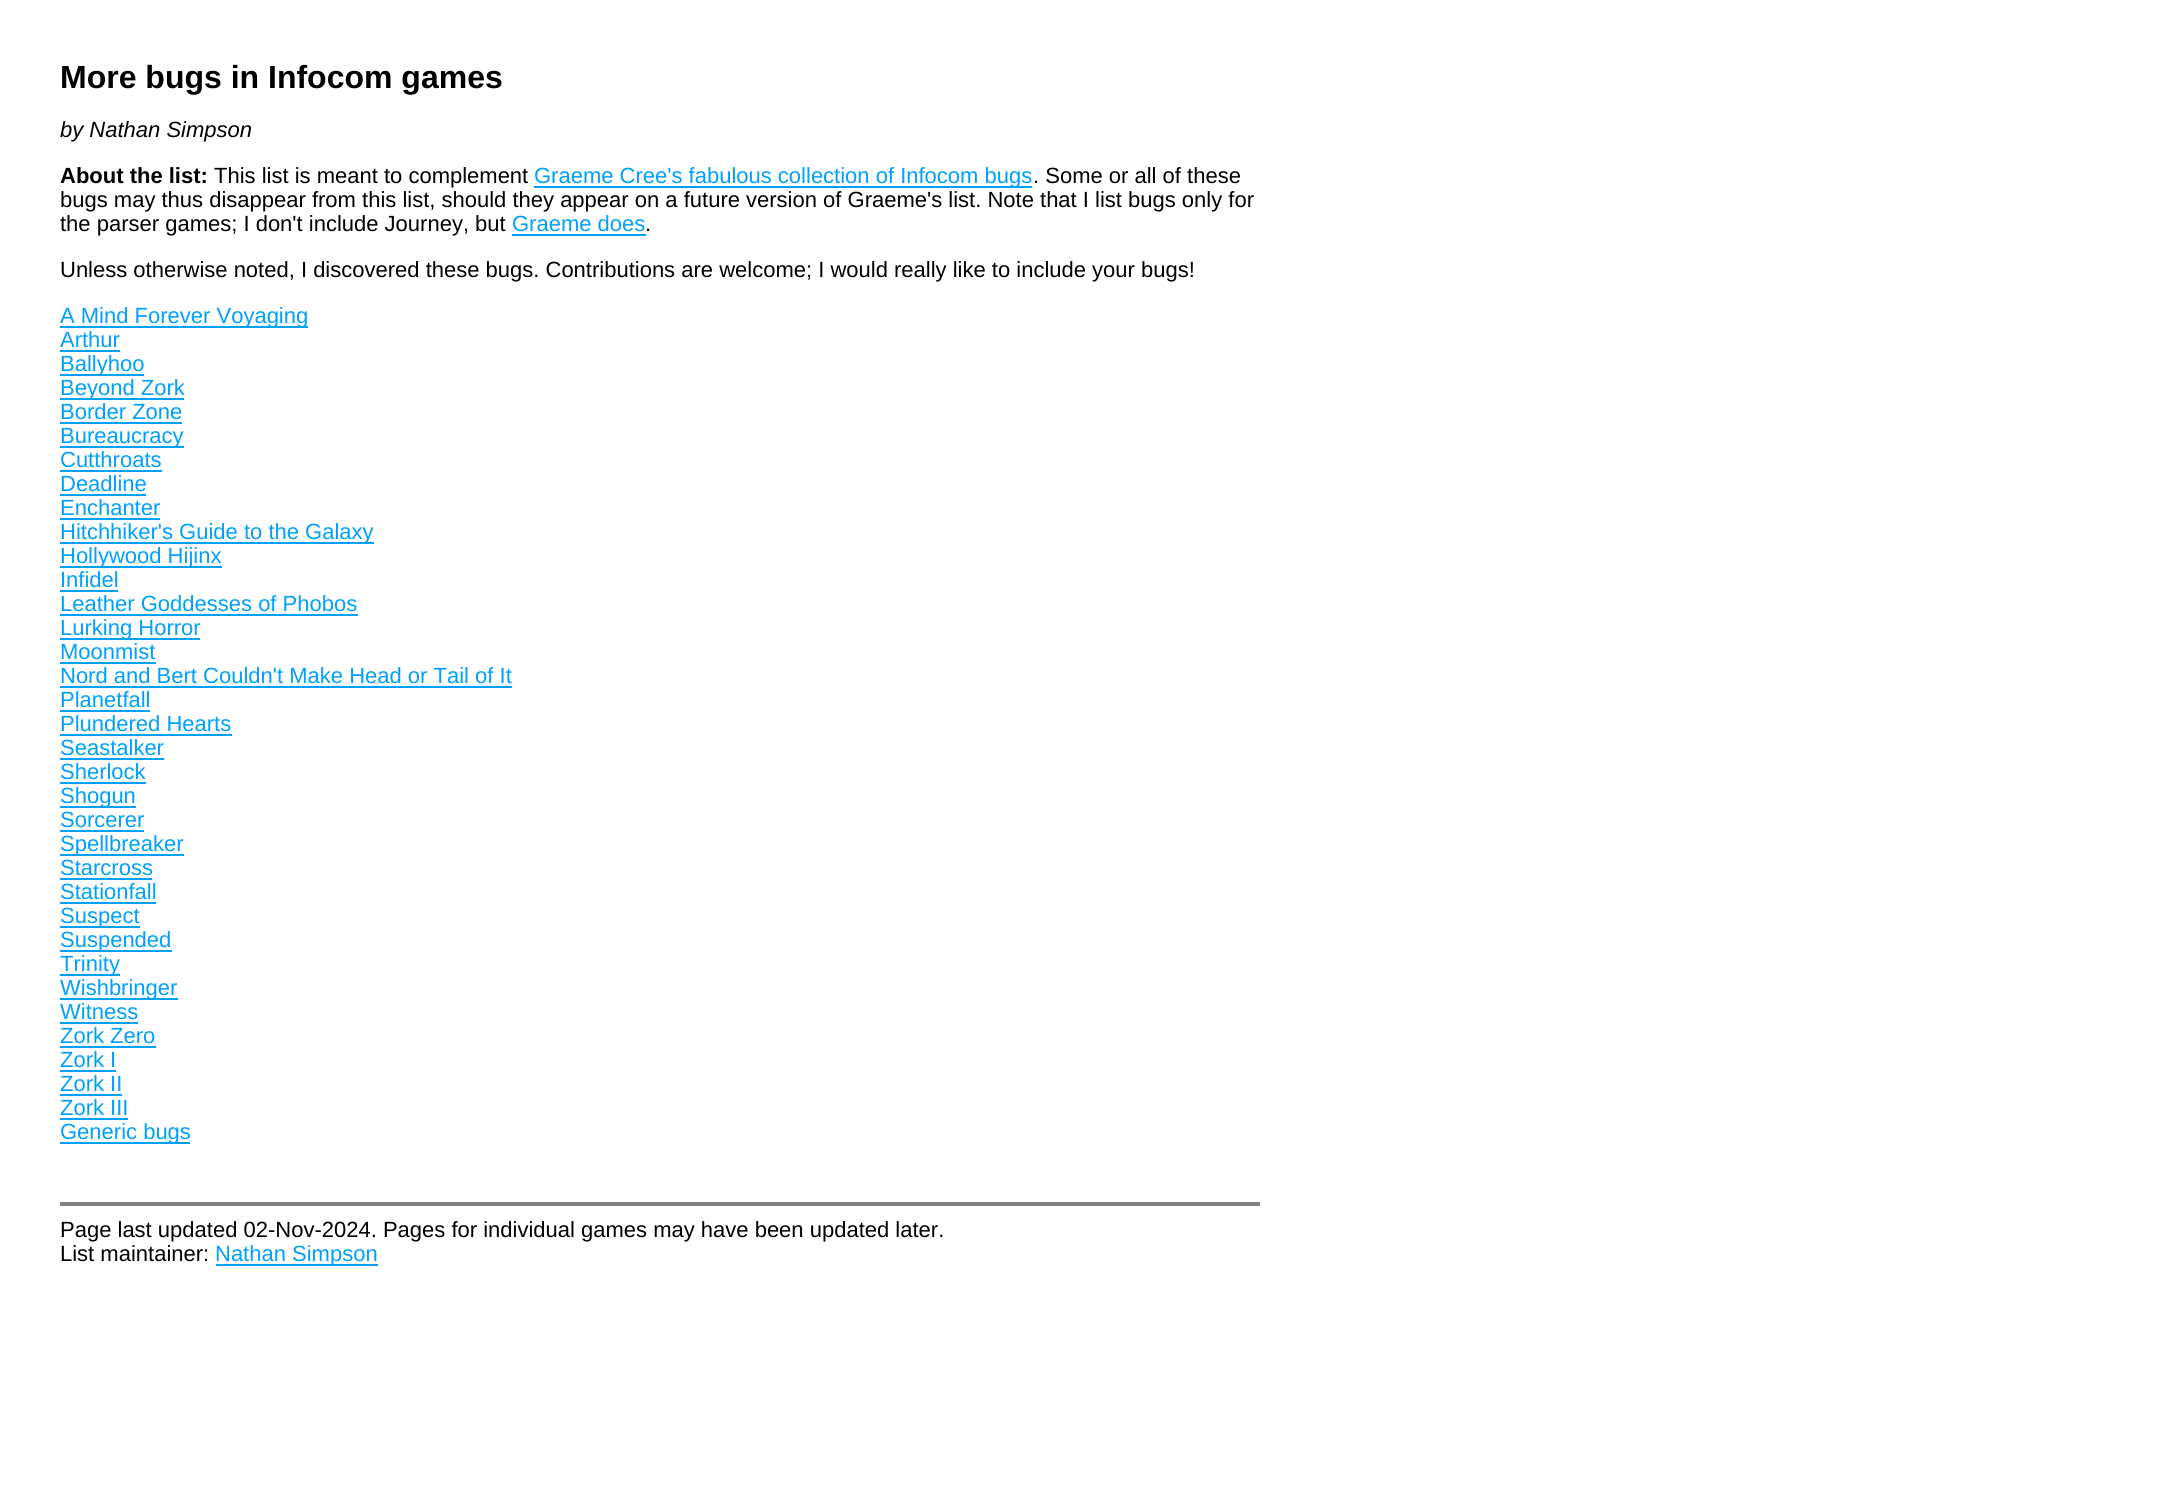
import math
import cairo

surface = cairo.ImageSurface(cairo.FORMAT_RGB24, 2182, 1503)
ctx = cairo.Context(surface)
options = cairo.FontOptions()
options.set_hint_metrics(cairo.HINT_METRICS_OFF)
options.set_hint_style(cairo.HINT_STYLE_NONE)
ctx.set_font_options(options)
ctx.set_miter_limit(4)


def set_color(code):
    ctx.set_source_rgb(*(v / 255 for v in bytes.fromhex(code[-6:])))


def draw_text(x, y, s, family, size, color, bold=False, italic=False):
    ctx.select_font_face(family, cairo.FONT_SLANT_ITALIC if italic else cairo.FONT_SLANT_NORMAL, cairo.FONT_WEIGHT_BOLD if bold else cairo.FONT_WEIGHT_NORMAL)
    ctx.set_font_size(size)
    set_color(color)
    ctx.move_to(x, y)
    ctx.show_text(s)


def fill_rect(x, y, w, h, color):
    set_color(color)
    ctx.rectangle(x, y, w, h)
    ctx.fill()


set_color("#ffffff")
ctx.paint()
draw_text(60, 88, "More bugs in Infocom games", "Liberation Sans", 32, "#000000", bold=True)
draw_text(60, 137, "by Nathan Simpson", "Liberation Sans", 22, "#000000", italic=True)
draw_text(60, 183, "About the list:", "Liberation Sans", 22, "#000000", bold=True)
draw_text(214, 183, "This list is meant to complement", "Liberation Sans", 22, "#000000")
fill_rect(534, 186, 498, 2, "#00a0ff")
draw_text(534, 183, "Graeme Cree's fabulous collection of Infocom bugs", "Liberation Sans", 22, "#00a0ff")
draw_text(1033, 183, ". Some or all of these", "Liberation Sans", 22, "#000000")
draw_text(60, 207, "bugs may thus disappear from this list, should they appear on a future version of Graeme's list. Note that I list bugs only for", "Liberation Sans", 22, "#000000")
draw_text(60, 231, "the parser games; I don't include Journey, but", "Liberation Sans", 22, "#000000")
draw_text(512, 231, "Graeme does", "Liberation Sans", 22, "#00a0ff")
fill_rect(512, 234, 134, 2, "#00a0ff")
draw_text(645, 231, ".", "Liberation Sans", 22, "#000000")
draw_text(60, 277, "Unless otherwise noted, I discovered these bugs. Contributions are welcome; I would really like to include your bugs!", "Liberation Sans", 22, "#000000")
fill_rect(60, 326, 248, 2, "#00a0ff")
draw_text(60, 323, "A Mind Forever Voyaging", "Liberation Sans", 22, "#00a0ff")
draw_text(60, 347, "Arthur", "Liberation Sans", 22, "#00a0ff")
fill_rect(60, 350, 60, 2, "#00a0ff")
fill_rect(60, 374, 84, 2, "#00a0ff")
draw_text(60, 371, "Ballyhoo", "Liberation Sans", 22, "#00a0ff")
fill_rect(60, 398, 124, 2, "#00a0ff")
draw_text(60, 395, "Beyond Zork", "Liberation Sans", 22, "#00a0ff")
draw_text(60, 419, "Border Zone", "Liberation Sans", 22, "#00a0ff")
fill_rect(60, 422, 122, 2, "#00a0ff")
fill_rect(60, 446, 124, 2, "#00a0ff")
draw_text(60, 443, "Bureaucracy", "Liberation Sans", 22, "#00a0ff")
draw_text(60, 467, "Cutthroats", "Liberation Sans", 22, "#00a0ff")
fill_rect(60, 470, 102, 2, "#00a0ff")
draw_text(60, 491, "Deadline", "Liberation Sans", 22, "#00a0ff")
fill_rect(60, 494, 86, 2, "#00a0ff")
draw_text(60, 515, "Enchanter", "Liberation Sans", 22, "#00a0ff")
fill_rect(60, 518, 100, 2, "#00a0ff")
fill_rect(60, 542, 314, 2, "#00a0ff")
draw_text(60, 539, "Hitchhiker's Guide to the Galaxy", "Liberation Sans", 22, "#00a0ff")
fill_rect(60, 566, 162, 2, "#00a0ff")
draw_text(60, 563, "Hollywood Hijinx", "Liberation Sans", 22, "#00a0ff")
draw_text(60, 587, "Infidel", "Liberation Sans", 22, "#00a0ff")
fill_rect(60, 590, 58, 2, "#00a0ff")
draw_text(60, 611, "Leather Goddesses of Phobos", "Liberation Sans", 22, "#00a0ff")
fill_rect(60, 614, 298, 2, "#00a0ff")
fill_rect(60, 638, 140, 2, "#00a0ff")
draw_text(60, 635, "Lurking Horror", "Liberation Sans", 22, "#00a0ff")
draw_text(60, 659, "Moonmist", "Liberation Sans", 22, "#00a0ff")
fill_rect(60, 662, 96, 2, "#00a0ff")
draw_text(60, 683, "Nord and Bert Couldn't Make Head or Tail of It", "Liberation Sans", 22, "#00a0ff")
fill_rect(60, 686, 452, 2, "#00a0ff")
draw_text(60, 707, "Planetfall", "Liberation Sans", 22, "#00a0ff")
fill_rect(60, 710, 90, 2, "#00a0ff")
draw_text(60, 731, "Plundered Hearts", "Liberation Sans", 22, "#00a0ff")
fill_rect(60, 734, 172, 2, "#00a0ff")
draw_text(60, 755, "Seastalker", "Liberation Sans", 22, "#00a0ff")
fill_rect(60, 758, 104, 2, "#00a0ff")
draw_text(60, 779, "Sherlock", "Liberation Sans", 22, "#00a0ff")
fill_rect(60, 782, 86, 2, "#00a0ff")
fill_rect(60, 806, 76, 2, "#00a0ff")
draw_text(60, 803, "Shogun", "Liberation Sans", 22, "#00a0ff")
draw_text(60, 827, "Sorcerer", "Liberation Sans", 22, "#00a0ff")
fill_rect(60, 830, 84, 2, "#00a0ff")
fill_rect(60, 854, 124, 2, "#00a0ff")
draw_text(60, 851, "Spellbreaker", "Liberation Sans", 22, "#00a0ff")
draw_text(60, 875, "Starcross", "Liberation Sans", 22, "#00a0ff")
fill_rect(60, 878, 92, 2, "#00a0ff")
draw_text(60, 899, "Stationfall", "Liberation Sans", 22, "#00a0ff")
fill_rect(60, 902, 96, 2, "#00a0ff")
fill_rect(60, 926, 80, 2, "#00a0ff")
draw_text(60, 923, "Suspect", "Liberation Sans", 22, "#00a0ff")
fill_rect(60, 950, 112, 2, "#00a0ff")
draw_text(60, 947, "Suspended", "Liberation Sans", 22, "#00a0ff")
fill_rect(60, 974, 60, 2, "#00a0ff")
draw_text(60, 971, "Trinity", "Liberation Sans", 22, "#00a0ff")
fill_rect(60, 998, 118, 2, "#00a0ff")
draw_text(60, 995, "Wishbringer", "Liberation Sans", 22, "#00a0ff")
draw_text(60, 1019, "Witness", "Liberation Sans", 22, "#00a0ff")
fill_rect(60, 1022, 78, 2, "#00a0ff")
draw_text(60, 1043, "Zork Zero", "Liberation Sans", 22, "#00a0ff")
fill_rect(60, 1046, 96, 2, "#00a0ff")
draw_text(60, 1067, "Zork I", "Liberation Sans", 22, "#00a0ff")
fill_rect(60, 1070, 56, 2, "#00a0ff")
draw_text(60, 1091, "Zork II", "Liberation Sans", 22, "#00a0ff")
fill_rect(60, 1094, 62, 2, "#00a0ff")
draw_text(60, 1115, "Zork III", "Liberation Sans", 22, "#00a0ff")
fill_rect(60, 1118, 68, 2, "#00a0ff")
fill_rect(60, 1142, 130, 2, "#00a0ff")
draw_text(60, 1139, "Generic bugs", "Liberation Sans", 22, "#00a0ff")
fill_rect(60, 1202, 1200, 4, "#808080")
draw_text(60, 1237, "Page last updated 02-Nov-2024. Pages for individual games may have been updated later.", "Liberation Sans", 22, "#000000")
draw_text(60, 1261, "List maintainer:", "Liberation Sans", 22, "#000000")
fill_rect(216, 1264, 162, 2, "#00a0ff")
draw_text(215, 1261, "Nathan Simpson", "Liberation Sans", 22, "#00a0ff")
surface.write_to_png("output.png")
